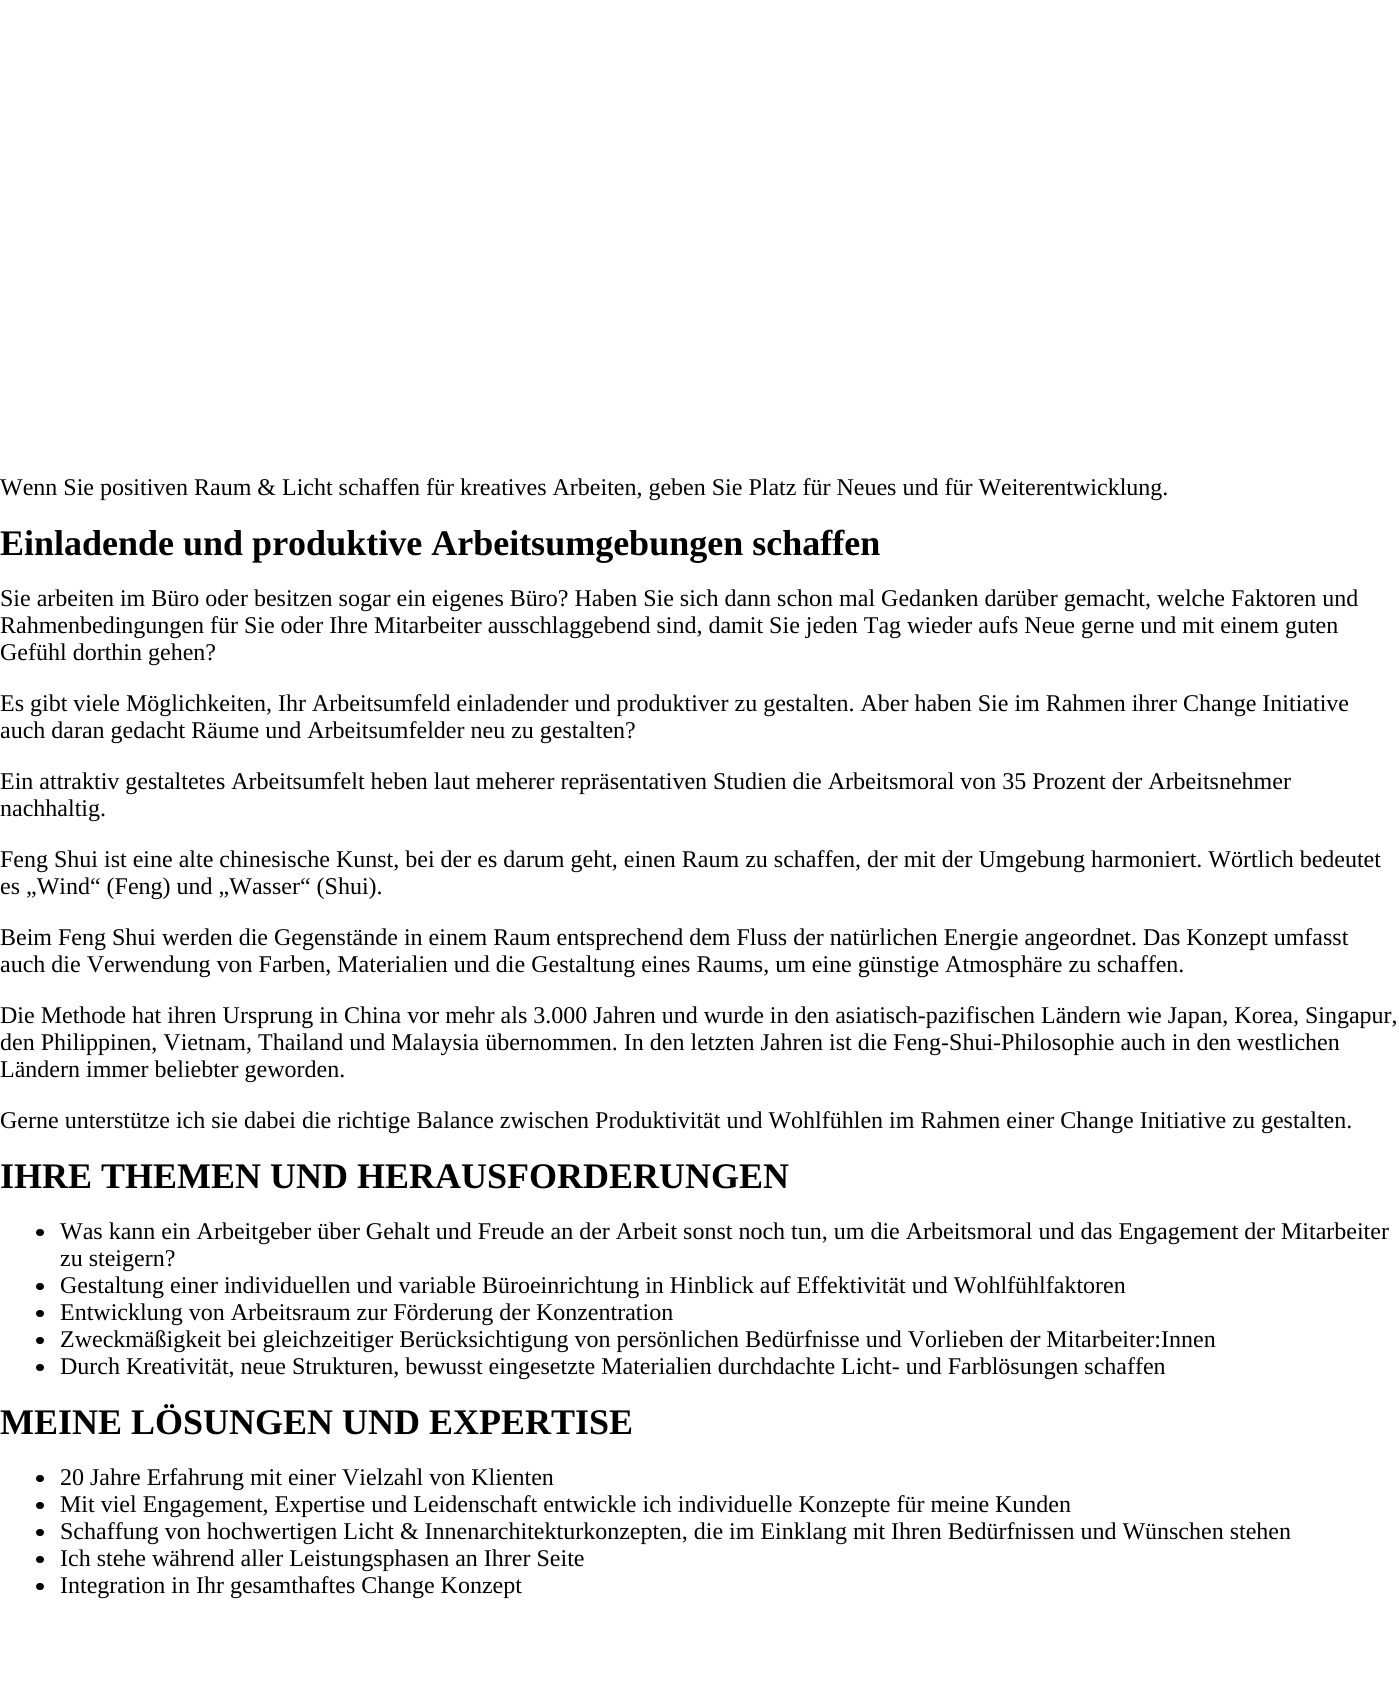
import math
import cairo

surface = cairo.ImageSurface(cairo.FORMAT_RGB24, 1399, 1700)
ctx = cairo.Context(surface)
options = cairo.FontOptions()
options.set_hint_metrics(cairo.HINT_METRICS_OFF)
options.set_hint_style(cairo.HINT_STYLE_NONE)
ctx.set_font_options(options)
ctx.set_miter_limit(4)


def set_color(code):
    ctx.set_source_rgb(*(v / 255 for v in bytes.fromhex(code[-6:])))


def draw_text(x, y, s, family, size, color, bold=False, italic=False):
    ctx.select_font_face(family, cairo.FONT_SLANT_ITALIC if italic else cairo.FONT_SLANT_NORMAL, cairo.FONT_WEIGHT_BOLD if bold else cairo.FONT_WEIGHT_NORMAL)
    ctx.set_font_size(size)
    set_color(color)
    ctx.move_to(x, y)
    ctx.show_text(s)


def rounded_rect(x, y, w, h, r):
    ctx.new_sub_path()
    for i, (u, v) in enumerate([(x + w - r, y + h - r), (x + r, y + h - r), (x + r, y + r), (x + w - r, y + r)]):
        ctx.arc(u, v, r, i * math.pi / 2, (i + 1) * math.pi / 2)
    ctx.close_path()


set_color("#ffffff")
ctx.paint()
draw_text(0, 495, "Wenn Sie positiven Raum & Licht schaffen für kreatives Arbeiten, geben Sie Platz für Neues und für Weiterentwicklung.", "Liberation Serif", 24, "#000000")
draw_text(0, 555, "Einladende und produktive Arbeitsumgebungen schaffen", "Liberation Serif", 36, "#000000", bold=True)
draw_text(0, 606, "Sie arbeiten im Büro oder besitzen sogar ein eigenes Büro? Haben Sie sich dann schon mal Gedanken darüber gemacht, welche Faktoren und", "Liberation Serif", 24, "#000000")
draw_text(0, 633, "Rahmenbedingungen für Sie oder Ihre Mitarbeiter ausschlaggebend sind, damit Sie jeden Tag wieder aufs Neue gerne und mit einem guten", "Liberation Serif", 24, "#000000")
draw_text(0, 660, "Gefühl dorthin gehen?", "Liberation Serif", 24, "#000000")
draw_text(0, 711, "Es gibt viele Möglichkeiten, Ihr Arbeitsumfeld einladender und produktiver zu gestalten. Aber haben Sie im Rahmen ihrer Change Initiative", "Liberation Serif", 24, "#000000")
draw_text(0, 738, "auch daran gedacht Räume und Arbeitsumfelder neu zu gestalten?", "Liberation Serif", 24, "#000000")
draw_text(0, 789, "Ein attraktiv gestaltetes Arbeitsumfelt heben laut meherer repräsentativen Studien die Arbeitsmoral von 35 Prozent der Arbeitsnehmer", "Liberation Serif", 24, "#000000")
draw_text(0, 816, "nachhaltig.", "Liberation Serif", 24, "#000000")
draw_text(0, 867, "Feng Shui ist eine alte chinesische Kunst, bei der es darum geht, einen Raum zu schaffen, der mit der Umgebung harmoniert. Wörtlich bedeutet", "Liberation Serif", 24, "#000000")
draw_text(0, 894, "es „Wind“ (Feng) und „Wasser“ (Shui).", "Liberation Serif", 24, "#000000")
draw_text(0, 945, "Beim Feng Shui werden die Gegenstände in einem Raum entsprechend dem Fluss der natürlichen Energie angeordnet. Das Konzept umfasst", "Liberation Serif", 24, "#000000")
draw_text(0, 972, "auch die Verwendung von Farben, Materialien und die Gestaltung eines Raums, um eine günstige Atmosphäre zu schaffen.", "Liberation Serif", 24, "#000000")
draw_text(0, 1023, "Die Methode hat ihren Ursprung in China vor mehr als 3.000 Jahren und wurde in den asiatisch-pazifischen Ländern wie Japan, Korea, Singapur,", "Liberation Serif", 24, "#000000")
draw_text(0, 1050, "den Philippinen, Vietnam, Thailand und Malaysia übernommen. In den letzten Jahren ist die Feng-Shui-Philosophie auch in den westlichen", "Liberation Serif", 24, "#000000")
draw_text(0, 1077, "Ländern immer beliebter geworden.", "Liberation Serif", 24, "#000000")
draw_text(0, 1128, "Gerne unterstütze ich sie dabei die richtige Balance zwischen Produktivität und Wohlfühlen im Rahmen einer Change Initiative zu gestalten.", "Liberation Serif", 24, "#000000")
draw_text(0, 1188, "IHRE THEMEN UND HERAUSFORDERUNGEN", "Liberation Serif", 36, "#000000", bold=True)
rounded_rect(36, 1229, 8, 7, 3.5)
ctx.fill()
draw_text(60, 1239, "Was kann ein Arbeitgeber über Gehalt und Freude an der Arbeit sonst noch tun, um die Arbeitsmoral und das Engagement der Mitarbeiter", "Liberation Serif", 24, "#000000")
draw_text(60, 1266, "zu steigern?", "Liberation Serif", 24, "#000000")
rounded_rect(36, 1283, 8, 7, 3.5)
ctx.fill()
draw_text(60, 1293, "Gestaltung einer individuellen und variable Büroeinrichtung in Hinblick auf Effektivität und Wohlfühlfaktoren", "Liberation Serif", 24, "#000000")
rounded_rect(36, 1310, 8, 7, 3.5)
ctx.fill()
draw_text(60, 1320, "Entwicklung von Arbeitsraum zur Förderung der Konzentration", "Liberation Serif", 24, "#000000")
rounded_rect(36, 1337, 8, 7, 3.5)
ctx.fill()
draw_text(60, 1347, "Zweckmäßigkeit bei gleichzeitiger Berücksichtigung von persönlichen Bedürfnisse und Vorlieben der Mitarbeiter:Innen", "Liberation Serif", 24, "#000000")
rounded_rect(36, 1364, 8, 7, 3.5)
ctx.fill()
draw_text(60, 1374, "Durch Kreativität, neue Strukturen, bewusst eingesetzte Materialien durchdachte Licht- und Farblösungen schaffen", "Liberation Serif", 24, "#000000")
draw_text(0, 1434, "MEINE LÖSUNGEN UND EXPERTISE", "Liberation Serif", 36, "#000000", bold=True)
rounded_rect(36, 1475, 8, 7, 3.5)
ctx.fill()
draw_text(60, 1485, "20 Jahre Erfahrung mit einer Vielzahl von Klienten", "Liberation Serif", 24, "#000000")
rounded_rect(36, 1502, 8, 7, 3.5)
ctx.fill()
draw_text(60, 1512, "Mit viel Engagement, Expertise und Leidenschaft entwickle ich individuelle Konzepte für meine Kunden", "Liberation Serif", 24, "#000000")
rounded_rect(36, 1529, 8, 7, 3.5)
ctx.fill()
draw_text(60, 1539, "Schaffung von hochwertigen Licht & Innenarchitekturkonzepten, die im Einklang mit Ihren Bedürfnissen und Wünschen stehen", "Liberation Serif", 24, "#000000")
rounded_rect(36, 1556, 8, 7, 3.5)
ctx.fill()
draw_text(60, 1566, "Ich stehe während aller Leistungsphasen an Ihrer Seite", "Liberation Serif", 24, "#000000")
rounded_rect(36, 1583, 8, 7, 3.5)
ctx.fill()
draw_text(60, 1593, "Integration in Ihr gesamthaftes Change Konzept", "Liberation Serif", 24, "#000000")
surface.write_to_png("output.png")
